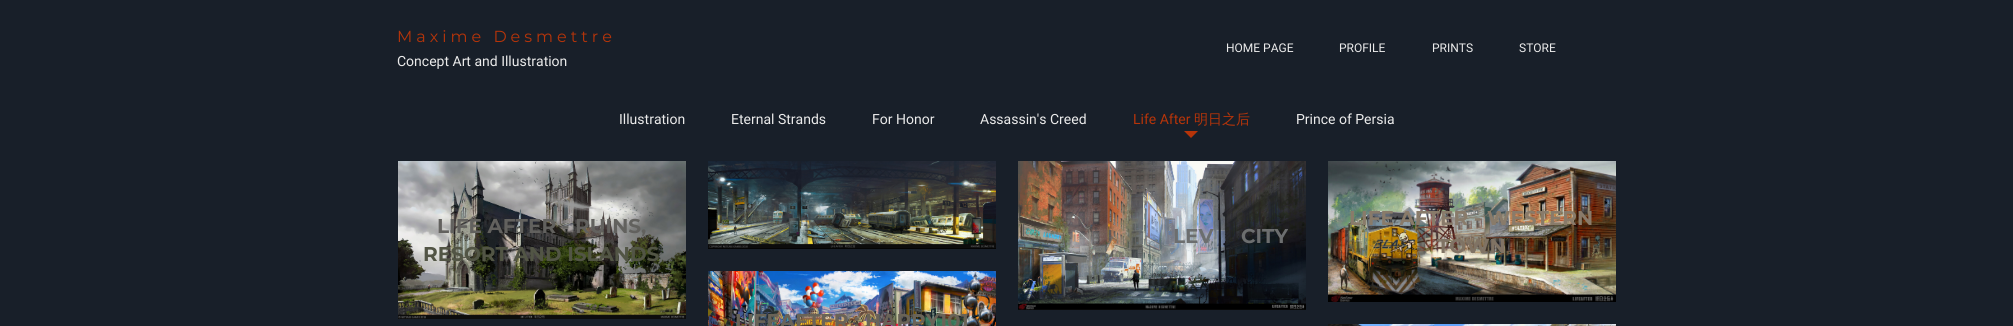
import math
import cairo

surface = cairo.ImageSurface(cairo.FORMAT_RGB24, 2013, 326)
ctx = cairo.Context(surface)
options = cairo.FontOptions()
options.set_hint_metrics(cairo.HINT_METRICS_OFF)
options.set_hint_style(cairo.HINT_STYLE_NONE)
ctx.set_font_options(options)
ctx.set_miter_limit(4)


def set_color(code):
    ctx.set_source_rgb(*(v / 255 for v in bytes.fromhex(code[-6:])))


def draw_text(x, y, s, family, size, color, bold=False, italic=False):
    ctx.select_font_face(family, cairo.FONT_SLANT_ITALIC if italic else cairo.FONT_SLANT_NORMAL, cairo.FONT_WEIGHT_BOLD if bold else cairo.FONT_WEIGHT_NORMAL)
    ctx.set_font_size(size)
    set_color(color)
    ctx.move_to(x, y)
    ctx.show_text(s)


def draw_spaced(x, y, s, letter, word):
    ctx.move_to(x, y)
    for ch in s:
        ctx.show_text(ch)
        ctx.rel_move_to(letter + word * (ch == ' '), 0)


def draw_image(path, x, y, w, h):
    ctx.save()
    ctx.set_source_surface(cairo.ImageSurface.create_from_png(path), x, y)
    ctx.rectangle(x, y, w, h)
    ctx.fill()
    ctx.restore()


set_color("#181f29")
ctx.paint()
ctx.select_font_face("Montserrat")
ctx.set_font_size(16)
set_color("#b63409")
draw_spaced(397, 42, "Maxime Desmettre", 4, 0)
draw_text(397, 66, "Concept Art and Illustration", "Roboto", 14, "#ebebeb")
draw_text(1226, 52, "HOME PAGE", "Roboto", 12, "#ebebeb")
draw_text(1339, 52, "PROFILE", "Roboto", 12, "#ebebeb")
draw_text(1432, 52, "PRINTS", "Roboto", 12, "#ebebeb")
draw_text(1519, 52, "STORE", "Roboto", 12, "#ebebeb")
draw_text(619, 124, "Illustration", "Roboto", 14, "#ebebeb")
draw_text(731, 124, "Eternal Strands", "Roboto", 14, "#ebebeb")
draw_text(872, 124, "For Honor", "Roboto", 14, "#ebebeb")
draw_text(980, 124, "Assassin's Creed", "Roboto", 14, "#ebebeb")
draw_text(1133, 124, "Life After", "Roboto", 14, "#b63409")
draw_text(1194, 124, "明日之后", "WenQuanYi Zen Hei Medium", 14, "#b63409")
ctx.new_path()
ctx.move_to(1184, 131)
ctx.line_to(1198, 131)
ctx.line_to(1191, 138)
ctx.close_path()
ctx.fill()
draw_text(1296, 124, "Prince of Persia", "Roboto", 14, "#ebebeb")
draw_image("assets/img1.png", 708, 161, 288, 88)
draw_text(910, 198, "-", "Montserrat", 20, "#313a40", bold=True)
draw_image("assets/img2.png", 398, 161, 288, 158)
draw_text(437, 233, "LIFE AFTER - RUINS,", "Montserrat", 20, "#62615e", bold=True)
draw_text(423, 261, "RESORT AND ISLANDS", "Montserrat", 20, "#525545", bold=True)
draw_image("assets/img3.png", 1018, 161, 288, 149)
draw_text(1173, 243, "LEV", "Montserrat", 20, "#6c6e6f", bold=True)
draw_text(1241, 243, "CITY", "Montserrat", 20, "#6c6e6f", bold=True)
draw_image("assets/img4.png", 1328, 161, 288, 141)
draw_text(1349, 225, "LIFE AFTER - WESTERN", "Montserrat", 20, "#897b6a", bold=True)
draw_text(1437, 253, "TOWN", "Montserrat", 20, "#807364", bold=True)
draw_image("assets/img5.png", 708, 271, 288, 55)
draw_text(735, 328, "LIFEAFTER : HAPPY101", "Montserrat", 20, "#696357", bold=True)
draw_image("assets/img6.png", 1328, 324, 288, 2)
surface.write_to_png("output.png")
